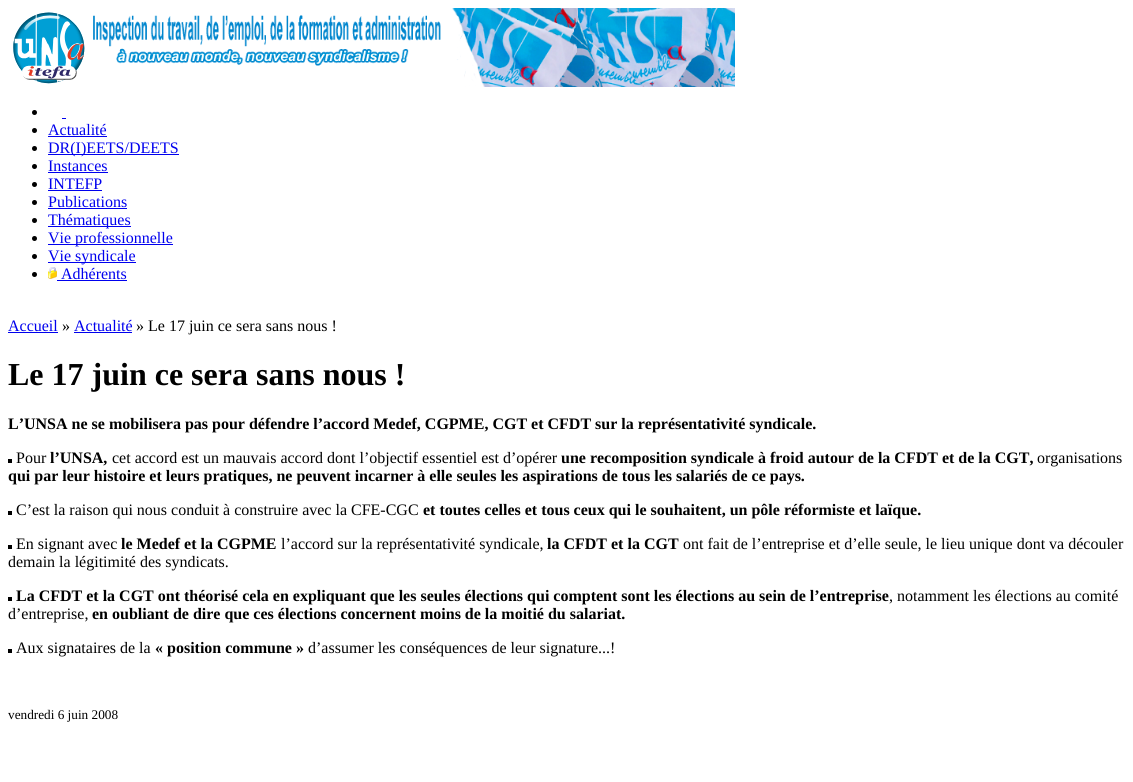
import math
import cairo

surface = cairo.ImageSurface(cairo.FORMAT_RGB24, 1133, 782)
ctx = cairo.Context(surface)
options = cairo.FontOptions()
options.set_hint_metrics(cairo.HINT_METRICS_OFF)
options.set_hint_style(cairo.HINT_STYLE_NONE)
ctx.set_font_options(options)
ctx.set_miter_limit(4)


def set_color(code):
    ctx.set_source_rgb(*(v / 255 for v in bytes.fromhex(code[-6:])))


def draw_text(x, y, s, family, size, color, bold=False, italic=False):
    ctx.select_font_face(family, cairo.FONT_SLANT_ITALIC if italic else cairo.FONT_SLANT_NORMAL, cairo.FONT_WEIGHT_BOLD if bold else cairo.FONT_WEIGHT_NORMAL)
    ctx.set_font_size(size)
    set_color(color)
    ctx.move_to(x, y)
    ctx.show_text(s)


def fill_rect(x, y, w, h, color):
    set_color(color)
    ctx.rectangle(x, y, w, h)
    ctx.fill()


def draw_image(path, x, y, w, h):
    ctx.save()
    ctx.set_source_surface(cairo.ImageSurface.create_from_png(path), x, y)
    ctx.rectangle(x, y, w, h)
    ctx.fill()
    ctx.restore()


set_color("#ffffff")
ctx.paint()
draw_image("assets/img1.png", 13, 12, 72, 72)
draw_image("assets/img2.png", 93, 8, 642, 79)
set_color("#000000")
ctx.arc(34.5, 112.5, 2.5, 0, 2 * math.pi)
ctx.fill()
fill_rect(62, 118, 4, 1, "#0000ee")
set_color("#000000")
ctx.arc(34.5, 130.5, 2.5, 0, 2 * math.pi)
ctx.fill()
draw_text(48, 135, "Actualité", "Liberation Serif", 16, "#0000ee")
fill_rect(48, 136, 59, 1, "#0000ee")
set_color("#000000")
ctx.new_path()
ctx.arc(34.5, 148.5, 2.5, 0, 2 * math.pi)
ctx.fill()
fill_rect(48, 154, 131, 1, "#0000ee")
draw_text(48, 153, "DR(I)EETS/DEETS", "Liberation Serif", 16, "#0000ee")
set_color("#000000")
ctx.new_path()
ctx.arc(34.5, 166.5, 2.5, 0, 2 * math.pi)
ctx.fill()
draw_text(48, 171, "Instances", "Liberation Serif", 16, "#0000ee")
fill_rect(48, 172, 60, 1, "#0000ee")
set_color("#000000")
ctx.new_path()
ctx.arc(34.5, 184.5, 2.5, 0, 2 * math.pi)
ctx.fill()
draw_text(48, 189, "INTEFP", "Liberation Serif", 16, "#0000ee")
fill_rect(48, 190, 54, 1, "#0000ee")
set_color("#000000")
ctx.new_path()
ctx.arc(34.5, 202.5, 2.5, 0, 2 * math.pi)
ctx.fill()
draw_text(48, 207, "Publications", "Liberation Serif", 16, "#0000ee")
fill_rect(48, 208, 79, 1, "#0000ee")
set_color("#000000")
ctx.new_path()
ctx.arc(34.5, 220.5, 2.5, 0, 2 * math.pi)
ctx.fill()
fill_rect(48, 226, 83, 1, "#0000ee")
draw_text(48, 225, "Thématiques", "Liberation Serif", 16, "#0000ee")
set_color("#000000")
ctx.new_path()
ctx.arc(34.5, 238.5, 2.5, 0, 2 * math.pi)
ctx.fill()
fill_rect(48, 244, 125, 1, "#0000ee")
draw_text(48, 243, "Vie professionnelle", "Liberation Serif", 16, "#0000ee")
set_color("#000000")
ctx.new_path()
ctx.arc(34.5, 256.5, 2.5, 0, 2 * math.pi)
ctx.fill()
fill_rect(48, 262, 88, 1, "#0000ee")
draw_text(48, 261, "Vie syndicale", "Liberation Serif", 16, "#0000ee")
set_color("#000000")
ctx.new_path()
ctx.arc(34.5, 274.5, 2.5, 0, 2 * math.pi)
ctx.fill()
draw_image("assets/img3.png", 48, 267, 9, 12)
draw_text(61, 279, "Adhérents", "Liberation Serif", 16, "#0000ee")
fill_rect(57, 280, 70, 1, "#0000ee")
draw_text(8, 331, "Accueil", "Liberation Serif", 16, "#0000ee")
fill_rect(8, 332, 50, 1, "#0000ee")
draw_text(62, 331, "»", "Liberation Serif", 16, "#000000")
draw_text(74, 331, "Actualité", "Liberation Serif", 16, "#0000ee")
fill_rect(74, 332, 58, 1, "#0000ee")
draw_text(136, 331, "» Le 17 juin ce sera sans nous !", "Liberation Serif", 16, "#000000")
draw_text(8, 385, "Le 17 juin ce sera sans nous !", "Liberation Serif", 32, "#000000", bold=True)
draw_text(8, 429, "L’UNSA ne se mobilisera pas pour défendre l’accord Medef, CGPME, CGT et CFDT sur la représentativité syndicale.", "Liberation Serif", 16, "#000000", bold=True)
fill_rect(8, 459, 4, 4, "#000000")
draw_text(16, 463, "Pour", "Liberation Serif", 16, "#000000")
draw_text(50, 463, "l’UNSA,", "Liberation Serif", 16, "#000000", bold=True)
draw_text(112, 463, "cet accord est un mauvais accord dont l’objectif essentiel est d’opérer", "Liberation Serif", 16, "#000000")
draw_text(561, 463, "une recomposition syndicale à froid autour de la CFDT et de la CGT,", "Liberation Serif", 16, "#000000", bold=True)
draw_text(1037, 463, "organisations", "Liberation Serif", 16, "#000000")
draw_text(8, 481, "qui par leur histoire et leurs pratiques, ne peuvent incarner à elle seules les aspirations de tous les salariés de ce pays.", "Liberation Serif", 16, "#000000", bold=True)
fill_rect(8, 511, 4, 4, "#000000")
draw_text(16, 515, "C’est la raison qui nous conduit à construire avec la CFE-CGC", "Liberation Serif", 16, "#000000")
draw_text(423, 515, "et toutes celles et tous ceux qui le souhaitent, un pôle réformiste et laïque.", "Liberation Serif", 16, "#000000", bold=True)
fill_rect(8, 545, 4, 4, "#000000")
draw_text(16, 549, "En signant avec", "Liberation Serif", 16, "#000000")
draw_text(121, 549, "le Medef et la CGPME", "Liberation Serif", 16, "#000000", bold=True)
draw_text(281, 549, "l’accord sur la représentativité syndicale,", "Liberation Serif", 16, "#000000")
draw_text(547, 549, "la CFDT et la CGT", "Liberation Serif", 16, "#000000", bold=True)
draw_text(683, 549, "ont fait de l’entreprise et d’elle seule, le lieu unique dont va découler", "Liberation Serif", 16, "#000000")
draw_text(8, 567, "demain la légitimité des syndicats.", "Liberation Serif", 16, "#000000")
fill_rect(8, 597, 4, 4, "#000000")
draw_text(16, 601, "La CFDT et la CGT ont théorisé cela en expliquant que les seules élections qui comptent sont les élections au sein de l’entreprise", "Liberation Serif", 16, "#000000", bold=True)
draw_text(889, 601, ", notamment les élections au comité", "Liberation Serif", 16, "#000000")
draw_text(8, 619, "d’entreprise,", "Liberation Serif", 16, "#000000")
draw_text(92, 619, "en oubliant de dire que ces élections concernent moins de la moitié du salariat.", "Liberation Serif", 16, "#000000", bold=True)
fill_rect(8, 649, 4, 4, "#000000")
draw_text(16, 653, "Aux signataires de la", "Liberation Serif", 16, "#000000")
draw_text(155, 653, "« position commune »", "Liberation Serif", 16, "#000000", bold=True)
draw_text(308, 653, "d’assumer les conséquences de leur signature...!", "Liberation Serif", 16, "#000000")
draw_text(8, 719, "vendredi 6 juin 2008", "Liberation Serif", 13.25, "#000000")
surface.write_to_png("output.png")
